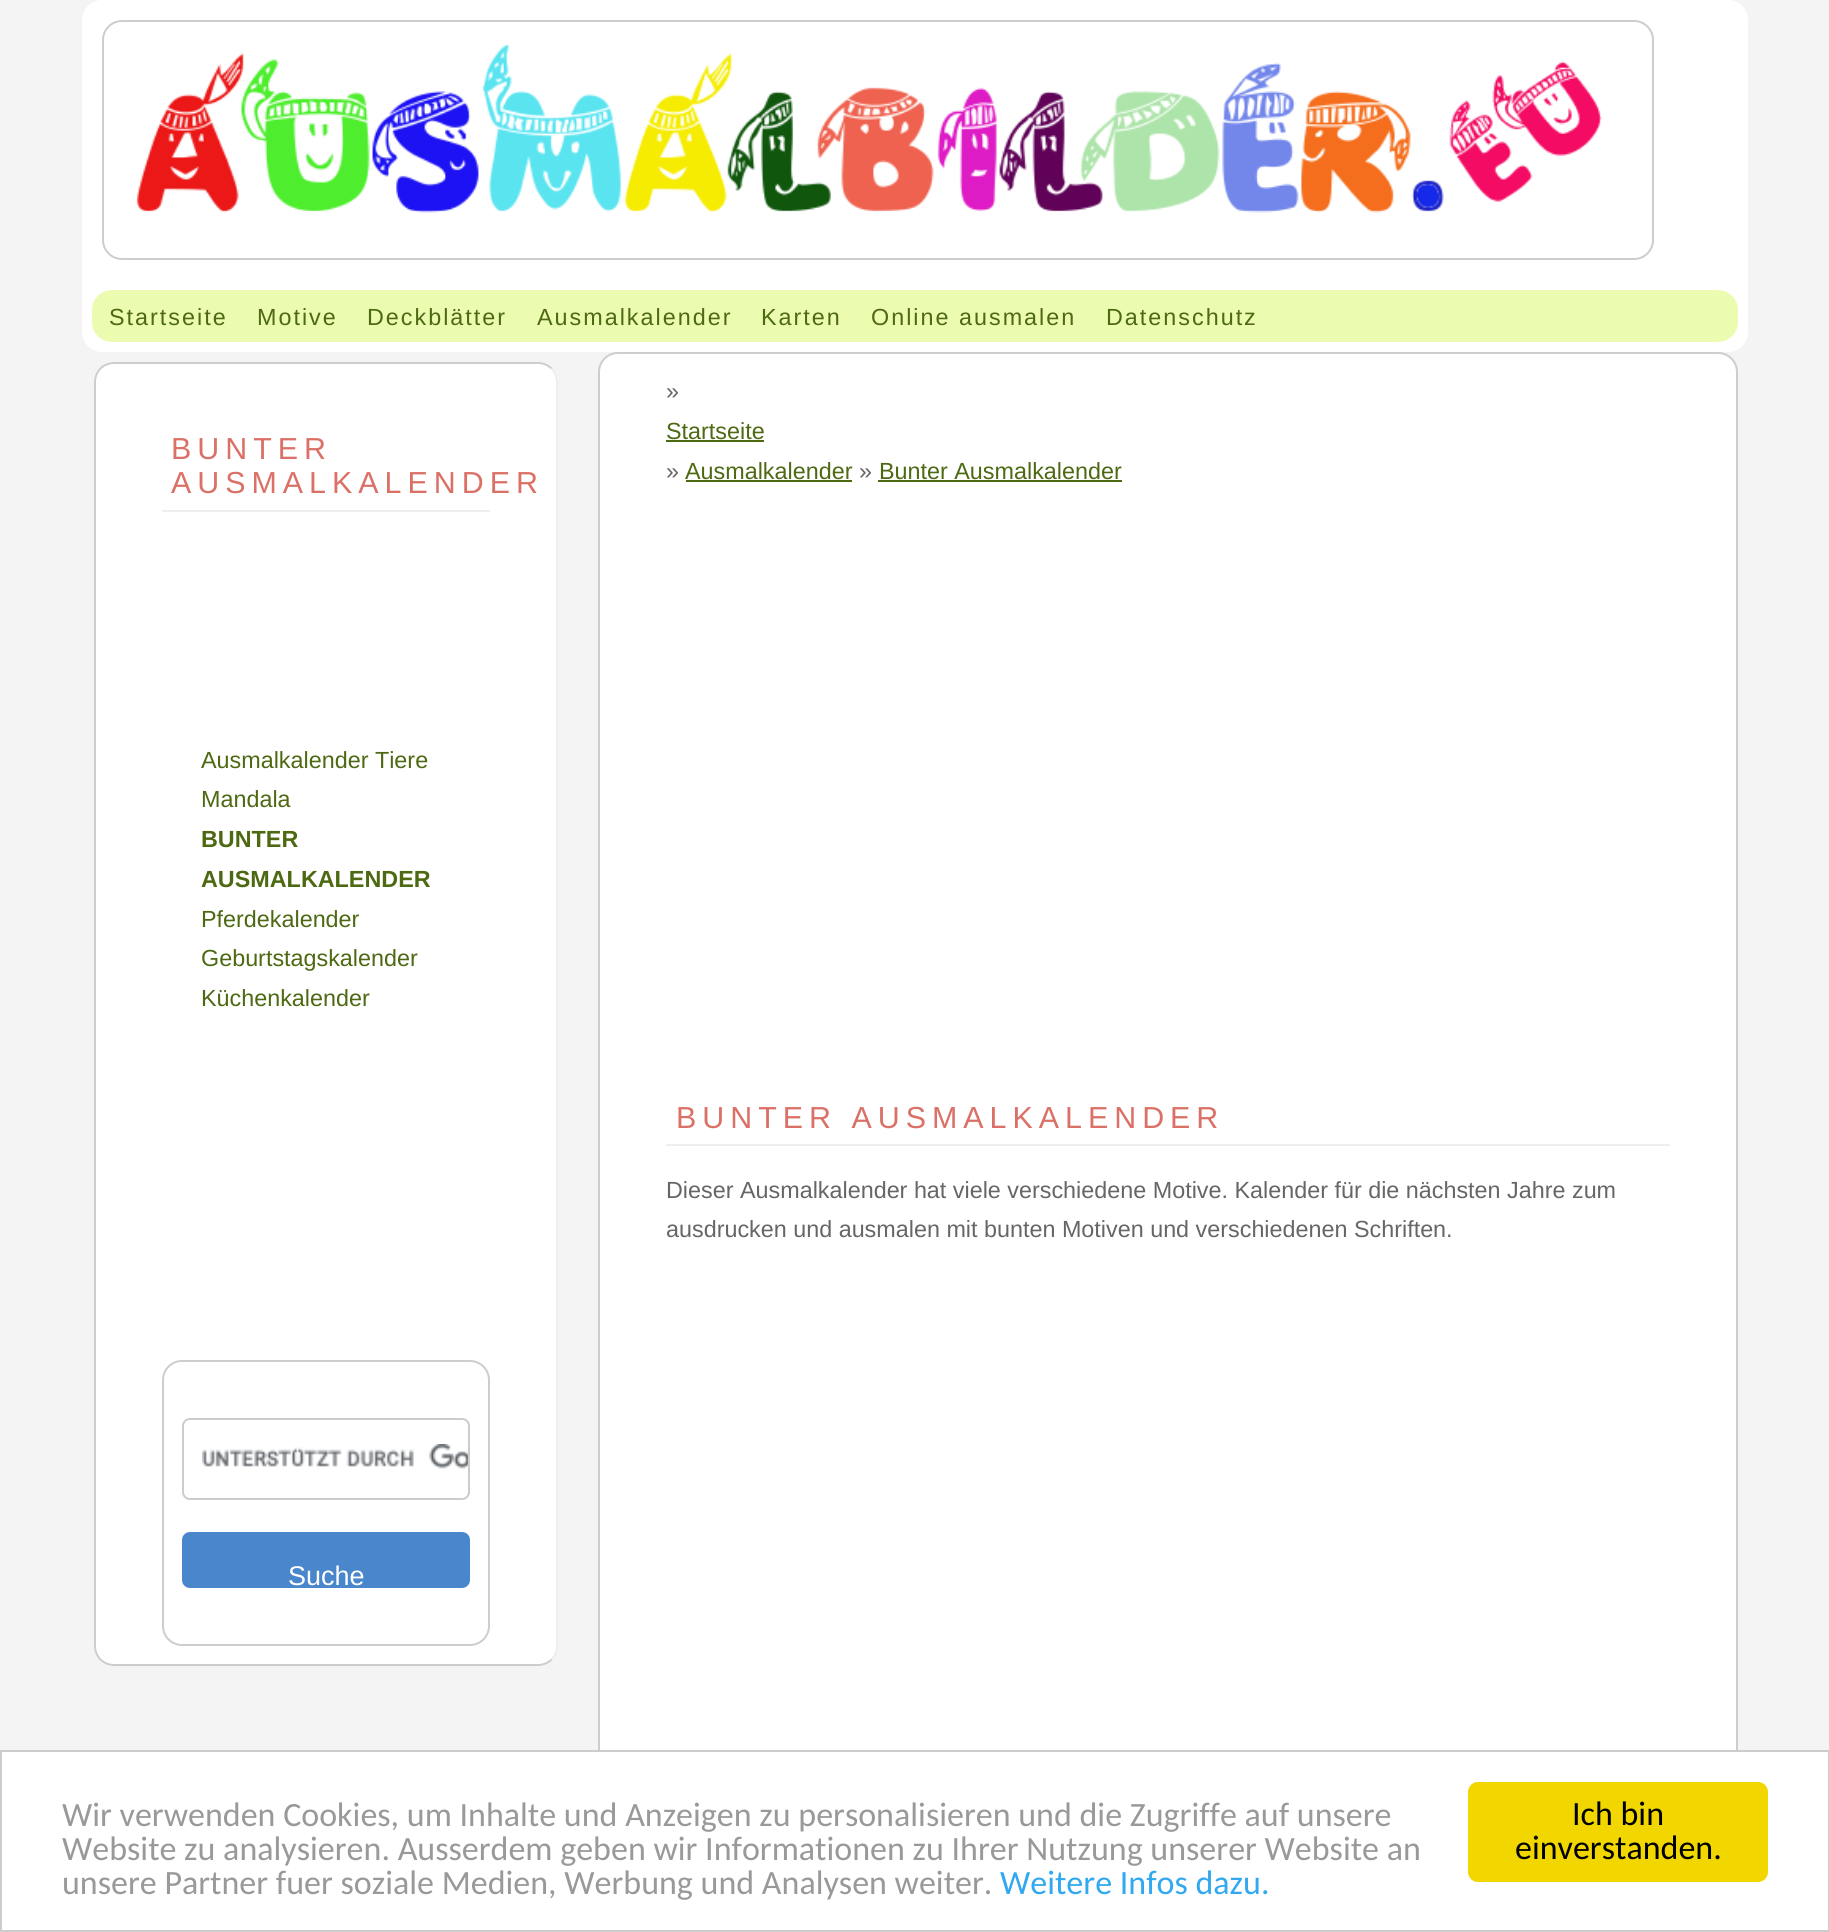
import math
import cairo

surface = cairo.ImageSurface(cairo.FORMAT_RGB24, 1829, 1932)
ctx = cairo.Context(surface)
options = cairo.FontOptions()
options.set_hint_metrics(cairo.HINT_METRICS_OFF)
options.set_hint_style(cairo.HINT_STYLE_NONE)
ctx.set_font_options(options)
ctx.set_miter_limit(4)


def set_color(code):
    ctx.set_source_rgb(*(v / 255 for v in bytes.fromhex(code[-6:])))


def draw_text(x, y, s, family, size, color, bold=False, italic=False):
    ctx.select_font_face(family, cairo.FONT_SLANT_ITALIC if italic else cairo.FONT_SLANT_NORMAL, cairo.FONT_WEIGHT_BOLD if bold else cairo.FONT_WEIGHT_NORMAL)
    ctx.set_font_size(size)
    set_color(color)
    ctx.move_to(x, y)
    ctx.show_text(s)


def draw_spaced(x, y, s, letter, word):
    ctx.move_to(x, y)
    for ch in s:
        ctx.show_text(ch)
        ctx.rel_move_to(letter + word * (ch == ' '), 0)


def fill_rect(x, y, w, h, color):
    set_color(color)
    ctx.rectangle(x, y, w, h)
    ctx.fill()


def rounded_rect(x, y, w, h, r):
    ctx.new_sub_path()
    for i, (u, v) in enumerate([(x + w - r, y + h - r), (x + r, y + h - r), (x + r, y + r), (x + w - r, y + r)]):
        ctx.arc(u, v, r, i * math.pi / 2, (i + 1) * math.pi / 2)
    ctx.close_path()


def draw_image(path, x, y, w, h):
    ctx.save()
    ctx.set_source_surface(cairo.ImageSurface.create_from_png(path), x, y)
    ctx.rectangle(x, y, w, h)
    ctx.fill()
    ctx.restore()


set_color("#f4f4f4")
ctx.paint()
set_color("#ffffff")
rounded_rect(87, 5, 1656, 342, 15)
ctx.fill_preserve()
ctx.set_line_width(10)
ctx.stroke()
rounded_rect(103, 21, 1550, 238, 19)
set_color("#cdcdcd")
ctx.set_line_width(2)
ctx.stroke()
draw_image("assets/img1.png", 136, 44, 1466, 169)
set_color("#ebfbb0")
rounded_rect(92, 290, 1646, 52, 20)
ctx.fill()
ctx.select_font_face("Liberation Sans")
ctx.set_font_size(23.35)
set_color("#4d6912")
draw_spaced(109, 325, "Startseite", 2, 0)
draw_spaced(257, 325, "Motive", 2, 0)
draw_spaced(367, 325, "Deckblätter", 2, 0)
draw_spaced(537, 325, "Ausmalkalender", 2, 0)
draw_spaced(761, 325, "Karten", 2, 0)
draw_spaced(871, 325, "Online ausmalen", 2, 0)
draw_spaced(1106, 325, "Datenschutz", 2, 0)
set_color("#ffffff")
rounded_rect(94, 362, 464, 1304, 20)
ctx.fill()
ctx.new_path()
ctx.move_to(551.5, 368.5)
ctx.curve_to(555, 372, 557, 377, 557, 382)
ctx.line_to(557, 1646)
ctx.curve_to(557, 1651, 555, 1656, 551.5, 1659.5)
set_color("#eeeeee")
ctx.stroke()
ctx.new_path()
ctx.move_to(551.5, 1659.5)
ctx.curve_to(548, 1663, 543, 1665, 538, 1665)
ctx.line_to(114, 1665)
ctx.curve_to(109, 1665, 104, 1663, 100.5, 1659.5)
ctx.curve_to(97, 1656, 95, 1651, 95, 1646)
ctx.line_to(95, 382)
ctx.curve_to(95, 377, 97, 372, 100.5, 368.5)
ctx.curve_to(104, 365, 109, 363, 114, 363)
ctx.line_to(538, 363)
ctx.curve_to(543, 363, 548, 365, 551.5, 368.5)
set_color("#cdcdcd")
ctx.stroke()
fill_rect(162, 510, 328, 2, "#eeeeee")
ctx.set_font_size(30.4)
set_color("#db7066")
draw_spaced(171, 459, "BUNTER", 6, 0)
draw_spaced(171, 493, "AUSMALKALENDER", 6, 0)
draw_text(201, 768, "Ausmalkalender Tiere", "Liberation Sans", 23.35, "#4d6912")
draw_text(201, 807, "Mandala", "Liberation Sans", 23.35, "#4d6912")
draw_text(201, 847, "BUNTER", "Liberation Sans", 23.35, "#4d6912", bold=True)
draw_text(201, 887, "AUSMALKALENDER", "Liberation Sans", 23.35, "#4d6912", bold=True)
draw_text(201, 927, "Pferdekalender", "Liberation Sans", 23.35, "#4d6912")
draw_text(201, 966, "Geburtstagskalender", "Liberation Sans", 23.35, "#4d6912")
draw_text(201, 1006, "Küchenkalender", "Liberation Sans", 23.35, "#4d6912")
rounded_rect(163, 1361, 326, 284, 19)
set_color("#cdcdcd")
ctx.stroke()
draw_image("assets/img2.png", 202, 1444, 266, 25)
rounded_rect(183, 1419, 286, 80, 7)
set_color("#cccccc")
ctx.stroke()
set_color("#4986cb")
rounded_rect(182, 1532, 288, 56, 8)
ctx.fill()
draw_text(288, 1585, "Suche", "Liberation Sans", 27, "#ffffff")
rounded_rect(599, 353, 1138, 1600, 19)
ctx.fill_preserve()
set_color("#cdcdcd")
ctx.stroke()
draw_text(666, 399, "»", "Liberation Sans", 23.35, "#666666")
draw_text(666, 439, "Startseite", "Liberation Sans", 23.35, "#4d6912")
fill_rect(666, 440, 98, 2, "#4d6912")
draw_text(666, 479, "»", "Liberation Sans", 23.35, "#666666")
draw_text(685, 479, "Ausmalkalender", "Liberation Sans", 23.35, "#4d6912")
fill_rect(686, 480, 166, 2, "#4d6912")
draw_text(859, 479, "»", "Liberation Sans", 23.35, "#666666")
draw_text(879, 479, "Bunter Ausmalkalender", "Liberation Sans", 23.35, "#4d6912")
fill_rect(878, 480, 244, 2, "#4d6912")
fill_rect(666, 1144, 1004, 2, "#eeeeee")
ctx.set_font_size(30.4)
set_color("#db7066")
draw_spaced(676, 1128, "BUNTER AUSMALKALENDER", 6, 0)
draw_text(666, 1198, "Dieser Ausmalkalender hat viele verschiedene Motive. Kalender für die nächsten Jahre zum", "Liberation Sans", 23.35, "#666666")
draw_text(666, 1237, "ausdrucken und ausmalen mit bunten Motiven und verschiedenen Schriften.", "Liberation Sans", 23.35, "#666666")
set_color("#ffffff")
ctx.rectangle(1, 1751, 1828, 180)
ctx.fill_preserve()
set_color("#cccccc")
ctx.stroke()
draw_text(62, 1826, "Wir verwenden Cookies, um Inhalte und Anzeigen zu personalisieren und die Zugriffe auf unsere", "Carlito", 34, "#999999")
draw_text(62, 1860, "Website zu analysieren. Ausserdem geben wir Informationen zu Ihrer Nutzung unserer Website an", "Carlito", 34, "#999999")
draw_text(62, 1894, "unsere Partner fuer soziale Medien, Werbung und Analysen weiter.", "Carlito", 34, "#999999")
draw_text(1000, 1894, "Weitere Infos dazu.", "Carlito", 34, "#31a8f0")
set_color("#f1d600")
rounded_rect(1468, 1782, 300, 100, 10)
ctx.fill()
draw_text(1572, 1825, "Ich bin", "Carlito", 34, "#000000")
draw_text(1515, 1859, "einverstanden.", "Carlito", 34, "#000000")
surface.write_to_png("output.png")
